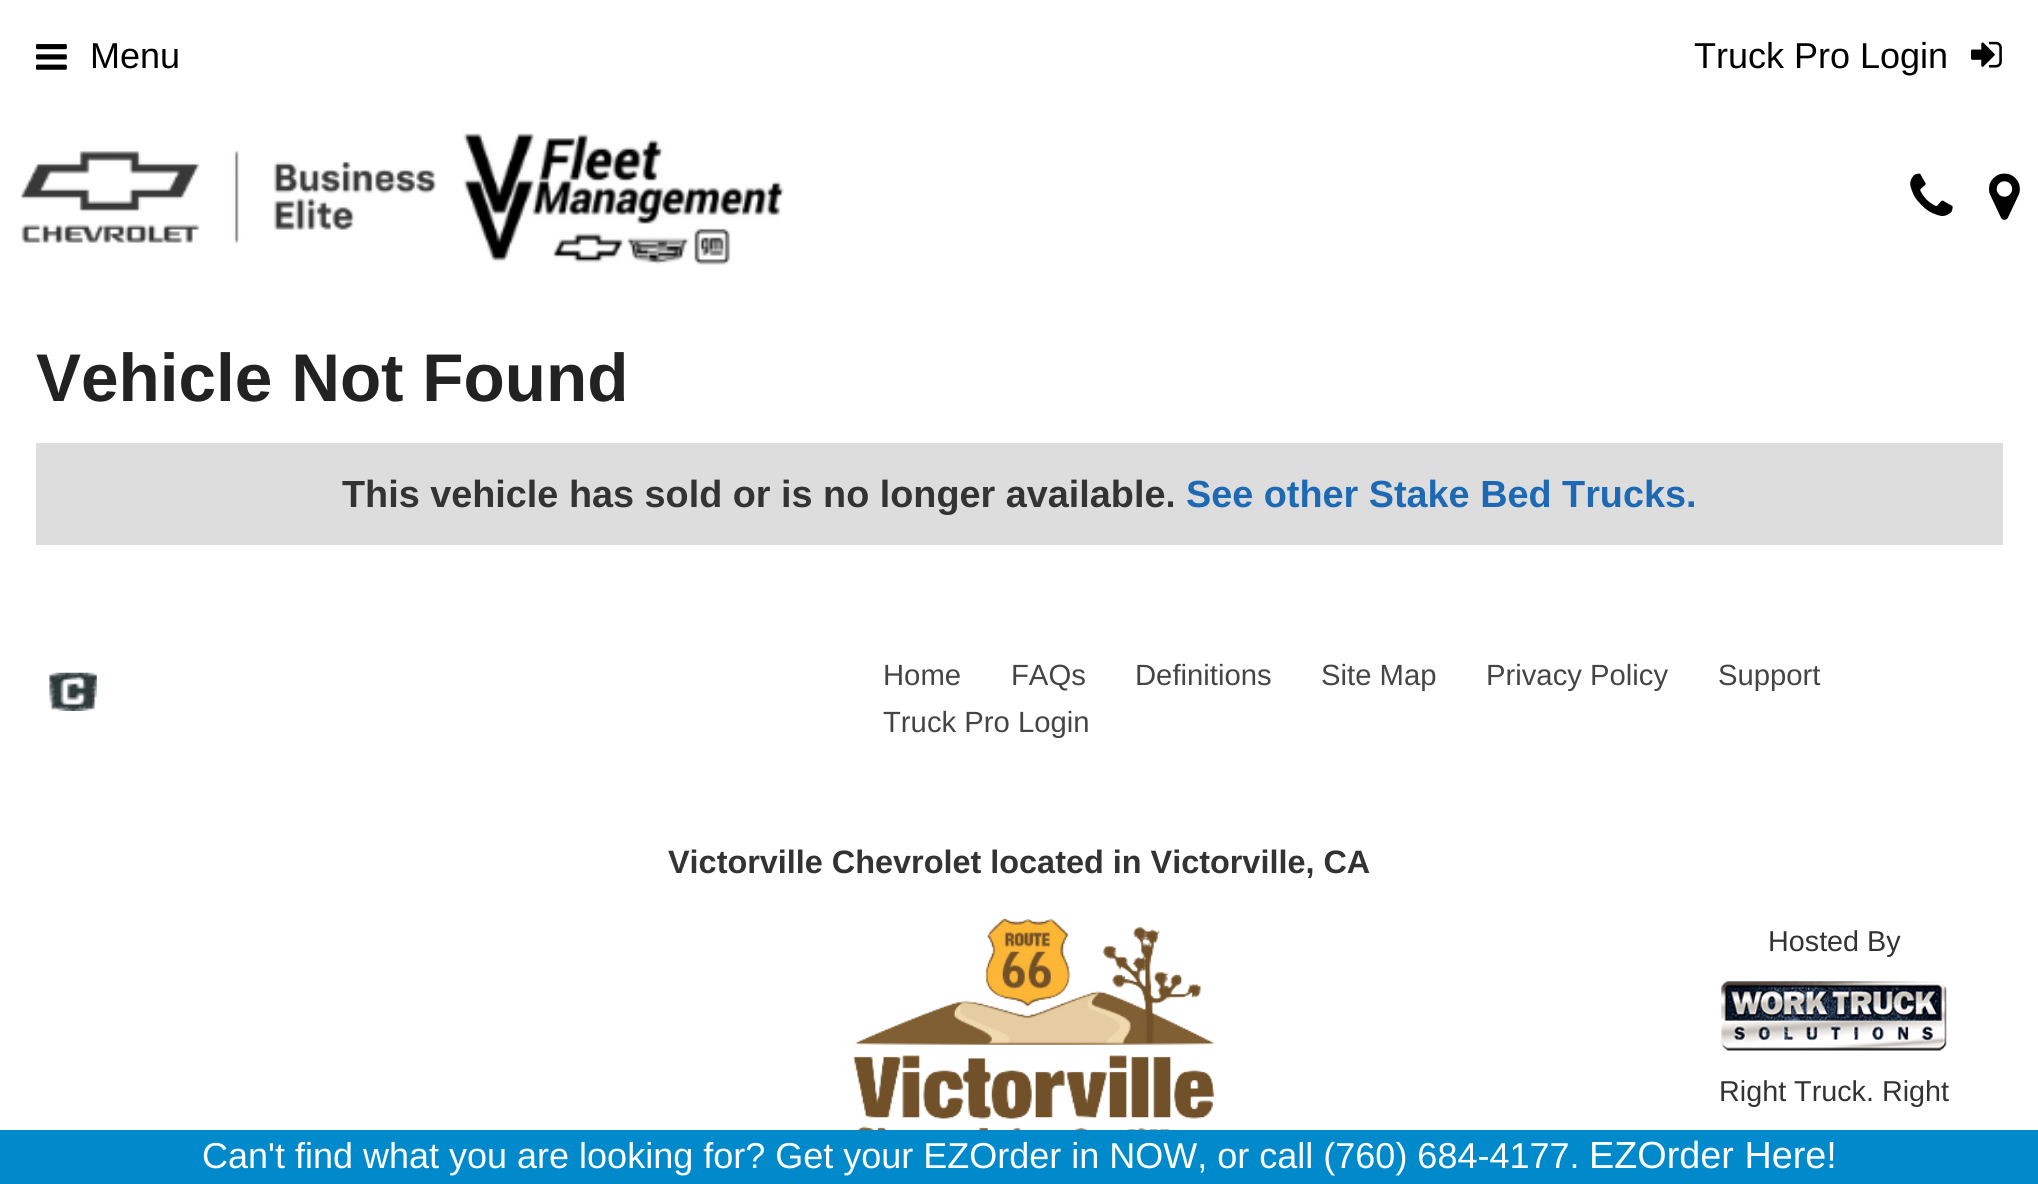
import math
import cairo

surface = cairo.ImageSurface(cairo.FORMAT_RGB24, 2038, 1184)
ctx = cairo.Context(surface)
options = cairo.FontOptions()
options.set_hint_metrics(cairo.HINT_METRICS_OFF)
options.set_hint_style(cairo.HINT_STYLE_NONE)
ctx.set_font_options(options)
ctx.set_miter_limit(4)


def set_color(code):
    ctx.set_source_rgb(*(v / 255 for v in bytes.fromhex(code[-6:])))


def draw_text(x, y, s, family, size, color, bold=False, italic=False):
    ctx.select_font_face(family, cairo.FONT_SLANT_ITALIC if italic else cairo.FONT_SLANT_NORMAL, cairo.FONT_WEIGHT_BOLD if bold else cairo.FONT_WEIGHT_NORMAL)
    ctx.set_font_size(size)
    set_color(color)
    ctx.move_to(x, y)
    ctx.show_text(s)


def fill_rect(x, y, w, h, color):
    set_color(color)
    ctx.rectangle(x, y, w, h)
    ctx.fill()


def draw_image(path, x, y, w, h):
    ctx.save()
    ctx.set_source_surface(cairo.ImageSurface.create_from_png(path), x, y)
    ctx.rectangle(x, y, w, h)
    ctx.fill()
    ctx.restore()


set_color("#ffffff")
ctx.paint()
draw_image("assets/img1.png", 36, 44, 31, 26)
draw_text(90, 68, "Menu", "Liberation Sans", 36, "#000000")
draw_text(1694, 68, "Truck Pro Login", "Liberation Sans", 36, "#000000")
draw_image("assets/img2.png", 1971, 41, 31, 27)
draw_image("assets/img3.png", 20, 133, 764, 132)
draw_image("assets/img4.png", 1910, 173, 43, 43)
draw_image("assets/img5.png", 1989, 173, 31, 47)
draw_text(36, 401, "Vehicle Not Found", "Liberation Sans", 67.5, "#222222", bold=True)
fill_rect(36, 443, 1967, 102, "#dddddd")
draw_text(342, 507, "This vehicle has sold or is no longer available.", "Liberation Sans", 37.8, "#333333", bold=True)
draw_text(1186, 507, "See other Stake Bed Trucks.", "Liberation Sans", 37.8, "#1d69b4", bold=True)
draw_image("assets/img6.png", 49, 672, 48, 39)
draw_text(883, 685, "Home", "Liberation Sans", 29.25, "#454545")
draw_text(1011, 685, "FAQs", "Liberation Sans", 29.25, "#454545")
draw_text(1135, 685, "Definitions", "Liberation Sans", 29.25, "#454545")
draw_text(1321, 685, "Site Map", "Liberation Sans", 29.25, "#454545")
draw_text(1486, 685, "Privacy Policy", "Liberation Sans", 29.25, "#454545")
draw_text(1718, 685, "Support", "Liberation Sans", 29.25, "#454545")
draw_text(883, 732, "Truck Pro Login", "Liberation Sans", 29.25, "#454545")
draw_text(668, 873, "Victorville Chevrolet located in Victorville, CA", "Liberation Sans", 32.4, "#333333", bold=True)
draw_image("assets/img7.png", 853, 918, 362, 212)
draw_text(1768, 951, "Hosted By", "Liberation Sans", 28.75, "#333333")
draw_image("assets/img8.png", 1721, 981, 226, 70)
draw_text(1719, 1101, "Right Truck. Right", "Liberation Sans", 28.75, "#333333")
fill_rect(0, 1130, 2038, 54, "#008acb")
draw_text(202, 1168, "Can't find what you are looking for? Get your EZOrder in NOW, or call (760) 684-4177.", "Liberation Sans", 36, "#ffffff")
draw_text(1589, 1168, "EZOrder Here!", "Liberation Sans", 37.8, "#ffffff")
surface.write_to_png("output.png")
